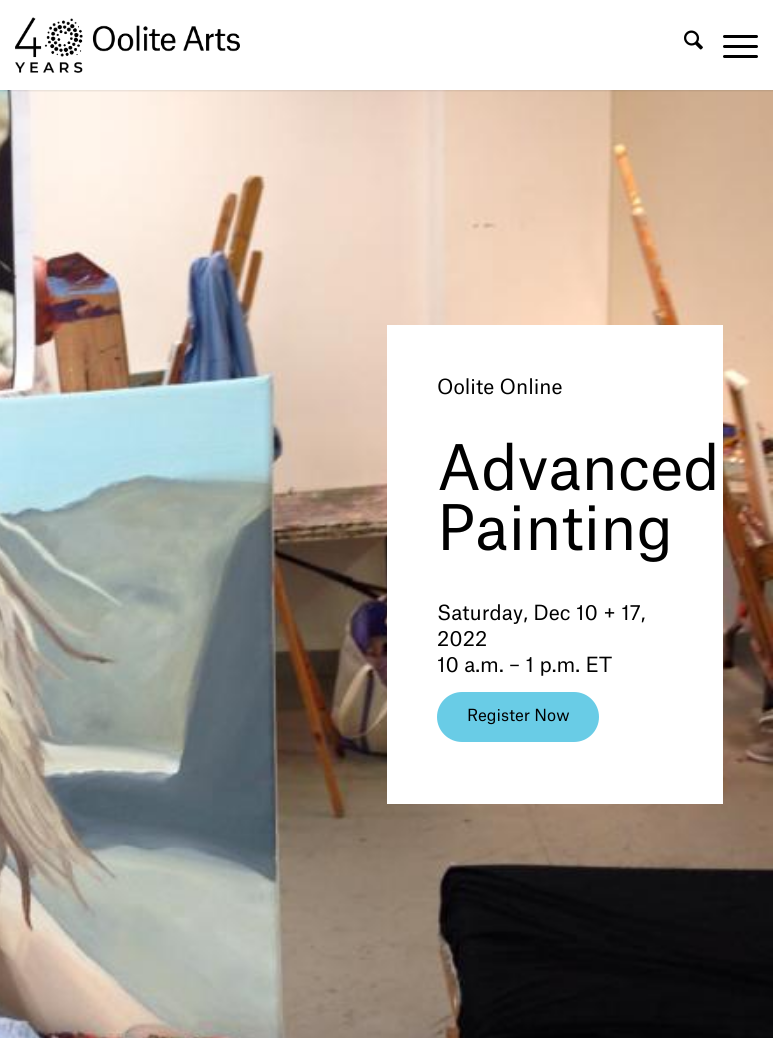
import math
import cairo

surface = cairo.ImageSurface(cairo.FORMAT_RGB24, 773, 1038)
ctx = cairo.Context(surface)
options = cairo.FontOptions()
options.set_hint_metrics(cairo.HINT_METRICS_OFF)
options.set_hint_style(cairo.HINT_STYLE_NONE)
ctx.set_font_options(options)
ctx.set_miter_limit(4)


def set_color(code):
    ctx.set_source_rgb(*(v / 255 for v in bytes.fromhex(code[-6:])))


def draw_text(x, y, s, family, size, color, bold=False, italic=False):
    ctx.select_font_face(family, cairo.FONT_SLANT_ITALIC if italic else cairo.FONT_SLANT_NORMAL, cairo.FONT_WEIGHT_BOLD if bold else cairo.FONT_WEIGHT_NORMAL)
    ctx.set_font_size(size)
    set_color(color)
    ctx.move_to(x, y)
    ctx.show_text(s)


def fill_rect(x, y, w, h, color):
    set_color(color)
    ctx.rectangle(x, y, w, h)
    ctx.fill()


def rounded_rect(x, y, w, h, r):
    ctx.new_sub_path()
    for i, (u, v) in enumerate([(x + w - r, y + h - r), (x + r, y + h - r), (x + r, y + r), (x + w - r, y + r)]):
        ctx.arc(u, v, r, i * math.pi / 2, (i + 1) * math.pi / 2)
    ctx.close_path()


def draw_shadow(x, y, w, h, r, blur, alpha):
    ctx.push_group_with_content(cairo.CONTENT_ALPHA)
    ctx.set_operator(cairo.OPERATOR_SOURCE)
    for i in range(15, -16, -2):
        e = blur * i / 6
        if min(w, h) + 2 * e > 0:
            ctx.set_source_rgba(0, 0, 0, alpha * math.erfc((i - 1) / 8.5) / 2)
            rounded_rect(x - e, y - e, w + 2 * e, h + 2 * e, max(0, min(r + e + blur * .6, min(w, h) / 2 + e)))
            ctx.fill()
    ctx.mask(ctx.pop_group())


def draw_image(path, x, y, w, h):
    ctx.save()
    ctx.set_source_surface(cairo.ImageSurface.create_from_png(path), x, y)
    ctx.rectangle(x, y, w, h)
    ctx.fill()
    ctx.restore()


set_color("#ffffff")
ctx.paint()
draw_image("assets/img3.png", 0, 90, 773, 948)
ctx.save()
ctx.rectangle(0, 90, 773, 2)
ctx.clip()
set_color("#000000")
draw_shadow(-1, -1, 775, 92, 0, 1, 0.1)
ctx.restore()
draw_image("assets/img1.png", 15, 17, 225, 56)
draw_image("assets/img2.png", 684, 30, 19, 20)
set_color("#000000")
rounded_rect(723, 45, 35, 3, 1.5)
ctx.fill()
rounded_rect(723, 35, 35, 3, 1.5)
ctx.fill()
rounded_rect(723, 55, 35, 3, 1.5)
ctx.fill()
fill_rect(387, 325, 336, 479, "#ffffff")
draw_text(437, 394, "Oolite Online", "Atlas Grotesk", 20, "#000000")
draw_text(437, 490, "Advanced", "Atlas Grotesk", 60, "#000000")
draw_text(437, 550, "Painting", "Atlas Grotesk", 60, "#000000")
draw_text(437, 620, "Saturday, Dec 10 + 17,", "Atlas Grotesk", 20, "#000000")
draw_text(437, 646, "2022", "Atlas Grotesk", 20, "#000000")
draw_text(437, 672, "10 a.m. – 1 p.m. ET", "Atlas Grotesk", 20, "#000000")
set_color("#69cce6")
rounded_rect(437, 692, 162, 50, 25)
ctx.fill()
draw_text(467, 721, "Register Now", "Atlas Grotesk", 16, "#000000")
surface.write_to_png("output.png")
